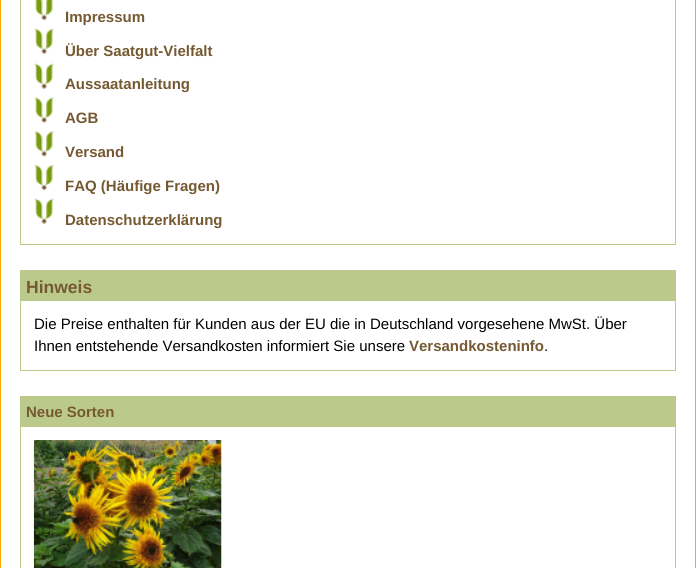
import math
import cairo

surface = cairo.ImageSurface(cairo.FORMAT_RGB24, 696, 568)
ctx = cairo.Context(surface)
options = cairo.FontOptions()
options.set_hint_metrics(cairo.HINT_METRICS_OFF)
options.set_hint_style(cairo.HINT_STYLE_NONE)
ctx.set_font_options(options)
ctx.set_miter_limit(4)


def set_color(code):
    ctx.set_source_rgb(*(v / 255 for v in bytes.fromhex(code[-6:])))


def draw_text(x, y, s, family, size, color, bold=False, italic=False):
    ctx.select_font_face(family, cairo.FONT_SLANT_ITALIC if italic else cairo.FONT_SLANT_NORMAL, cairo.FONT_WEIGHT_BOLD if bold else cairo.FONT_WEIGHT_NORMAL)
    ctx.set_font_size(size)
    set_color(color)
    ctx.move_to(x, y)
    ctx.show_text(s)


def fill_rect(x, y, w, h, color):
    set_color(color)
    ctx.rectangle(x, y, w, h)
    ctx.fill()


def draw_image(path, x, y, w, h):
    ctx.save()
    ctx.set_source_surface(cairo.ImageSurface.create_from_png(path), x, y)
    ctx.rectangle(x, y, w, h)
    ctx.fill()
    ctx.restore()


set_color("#ffffff")
ctx.paint()
fill_rect(695, 0, 1, 568, "#ffa500")
fill_rect(0, 0, 1, 568, "#ffa500")
ctx.rectangle(20.5, -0.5, 655, 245)
set_color("#bccb8a")
ctx.set_line_width(1)
ctx.stroke()
draw_image("assets/img1.png", 35, 0, 18, 21)
draw_text(65, 22, "Impressum", "Liberation Sans", 15, "#755932", bold=True)
draw_image("assets/img2.png", 34, 28, 20, 26)
draw_text(65, 56, "Über Saatgut-Vielfalt", "Liberation Sans", 15, "#755932", bold=True)
draw_image("assets/img2.png", 34, 63, 20, 26)
draw_text(65, 89, "Aussaatanleitung", "Liberation Sans", 15, "#755932", bold=True)
draw_image("assets/img3.png", 34, 97, 20, 26)
draw_text(65, 123, "AGB", "Liberation Sans", 15, "#755932", bold=True)
draw_image("assets/img4.png", 34, 131, 20, 26)
draw_text(65, 157, "Versand", "Liberation Sans", 15, "#755932", bold=True)
draw_image("assets/img5.png", 34, 164, 20, 27)
draw_text(65, 191, "FAQ (Häufige Fragen)", "Liberation Sans", 15, "#755932", bold=True)
draw_image("assets/img2.png", 34, 198, 20, 26)
draw_text(65, 225, "Datenschutzerklärung", "Liberation Sans", 15, "#755932", bold=True)
fill_rect(20, 270, 656, 30, "#bbca8b")
draw_text(26, 293, "Hinweis", "Liberation Sans", 17.5, "#755932", bold=True)
ctx.rectangle(20.5, 300.5, 655, 70)
set_color("#bccb8a")
ctx.stroke()
draw_text(34, 329, "Die Preise enthalten für Kunden aus der EU die in Deutschland vorgesehene MwSt. Über", "Liberation Sans", 15, "#000000")
draw_text(34, 351, "Ihnen entstehende Versandkosten informiert Sie unsere", "Liberation Sans", 15, "#000000")
draw_text(409, 351, "Versandkosteninfo", "Liberation Sans", 15, "#755932", bold=True)
draw_text(544, 351, ".", "Liberation Sans", 15, "#000000")
fill_rect(20, 396, 656, 30, "#bbca8b")
draw_text(26, 417, "Neue Sorten", "Liberation Sans", 15, "#755932", bold=True)
ctx.rectangle(20.5, 426.5, 655, 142)
set_color("#bccb8a")
ctx.stroke()
draw_image("assets/img6.png", 33, 440, 189, 128)
surface.write_to_png("output.png")
